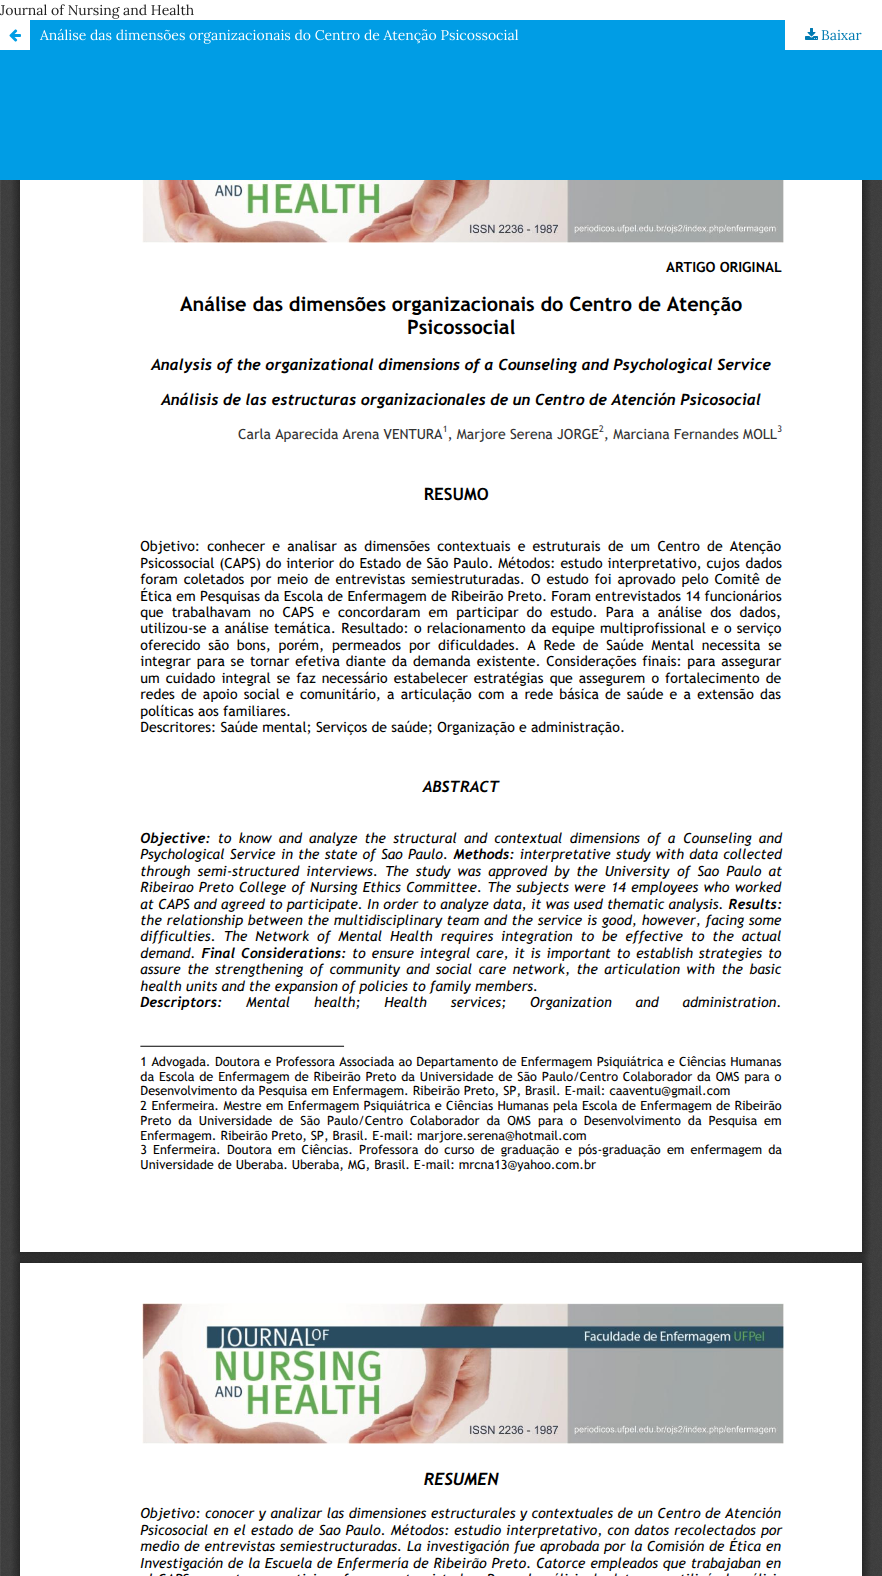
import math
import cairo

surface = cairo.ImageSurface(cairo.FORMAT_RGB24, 882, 1576)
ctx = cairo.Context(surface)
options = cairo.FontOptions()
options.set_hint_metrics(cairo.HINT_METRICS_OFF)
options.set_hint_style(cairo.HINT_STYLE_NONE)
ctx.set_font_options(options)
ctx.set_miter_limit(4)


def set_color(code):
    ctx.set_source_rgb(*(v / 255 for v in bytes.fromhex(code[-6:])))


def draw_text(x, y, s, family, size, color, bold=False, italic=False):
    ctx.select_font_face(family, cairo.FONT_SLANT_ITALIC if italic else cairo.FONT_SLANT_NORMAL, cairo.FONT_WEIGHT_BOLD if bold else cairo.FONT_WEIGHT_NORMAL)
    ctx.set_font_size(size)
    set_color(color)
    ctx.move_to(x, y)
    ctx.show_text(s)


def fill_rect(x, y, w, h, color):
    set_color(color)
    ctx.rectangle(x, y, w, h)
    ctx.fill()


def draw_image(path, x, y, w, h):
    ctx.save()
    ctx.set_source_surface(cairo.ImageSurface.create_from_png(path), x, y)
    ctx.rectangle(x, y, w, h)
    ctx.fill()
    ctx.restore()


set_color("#ffffff")
ctx.paint()
draw_text(0, 15, "Journal of Nursing and Health", "Lora", 14, "#212121")
fill_rect(0, 20, 882, 160, "#009de5")
fill_rect(0, 20, 30, 30, "#ffffff")
draw_image("assets/img1.png", 9, 29, 12, 13)
draw_text(40, 40, "Análise das dimensões organizacionais do Centro de Atenção Psicossocial", "Lora", 14, "#ffffff")
fill_rect(785, 20, 97, 30, "#ffffff")
draw_image("assets/img2.png", 805, 28, 13, 12)
draw_text(821, 40, "Baixar", "Lora", 14, "#007ab2")
draw_image("assets/img3.png", 0, 180, 882, 1396)
surface.write_to_png("output.png")
